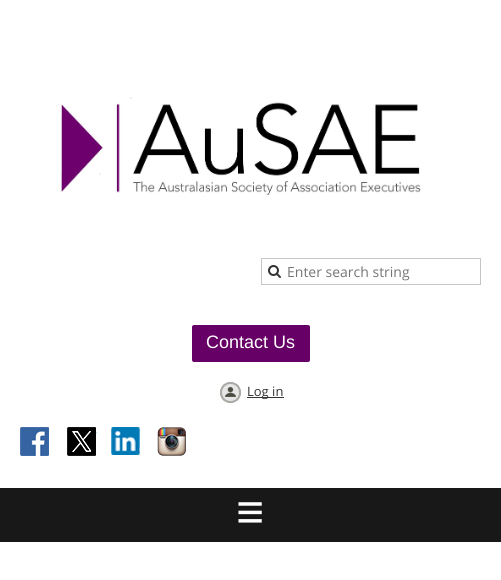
import math
import cairo

surface = cairo.ImageSurface(cairo.FORMAT_RGB24, 501, 580)
ctx = cairo.Context(surface)
options = cairo.FontOptions()
options.set_hint_metrics(cairo.HINT_METRICS_OFF)
options.set_hint_style(cairo.HINT_STYLE_NONE)
ctx.set_font_options(options)
ctx.set_miter_limit(4)


def set_color(code):
    ctx.set_source_rgb(*(v / 255 for v in bytes.fromhex(code[-6:])))


def draw_text(x, y, s, family, size, color, bold=False, italic=False):
    ctx.select_font_face(family, cairo.FONT_SLANT_ITALIC if italic else cairo.FONT_SLANT_NORMAL, cairo.FONT_WEIGHT_BOLD if bold else cairo.FONT_WEIGHT_NORMAL)
    ctx.set_font_size(size)
    set_color(color)
    ctx.move_to(x, y)
    ctx.show_text(s)


def fill_rect(x, y, w, h, color):
    set_color(color)
    ctx.rectangle(x, y, w, h)
    ctx.fill()


def rounded_rect(x, y, w, h, r):
    ctx.new_sub_path()
    for i, (u, v) in enumerate([(x + w - r, y + h - r), (x + r, y + h - r), (x + r, y + r), (x + w - r, y + r)]):
        ctx.arc(u, v, r, i * math.pi / 2, (i + 1) * math.pi / 2)
    ctx.close_path()


def draw_image(path, x, y, w, h):
    ctx.save()
    ctx.set_source_surface(cairo.ImageSurface.create_from_png(path), x, y)
    ctx.rectangle(x, y, w, h)
    ctx.fill()
    ctx.restore()


set_color("#ffffff")
ctx.paint()
draw_image("assets/img1.png", 60, 97, 361, 98)
ctx.rectangle(261.5, 258.5, 219, 26)
set_color("#c6c6c6")
ctx.set_line_width(1)
ctx.stroke()
draw_image("assets/img2.png", 268, 265, 13, 13)
draw_text(287, 277, "Enter search string", "Open Sans", 14, "#757575")
set_color("#660066")
rounded_rect(192, 325, 118, 37, 2)
ctx.fill()
draw_text(206, 348, "Contact Us", "Liberation Sans", 18, "#ffffff")
draw_image("assets/img3.png", 220, 382, 21, 21)
fill_rect(247, 397, 37, 1, "#333333")
draw_text(247, 396, "Log in", "Open Sans", 13, "#333333")
draw_image("assets/img4.png", 20, 427, 29, 29)
draw_image("assets/img5.png", 67, 427, 30, 29)
draw_image("assets/img6.png", 111, 427, 30, 28)
draw_image("assets/img7.png", 157, 427, 29, 29)
fill_rect(0, 488, 501, 54, "#171817")
draw_text(236, 529, "≡", "Liberation Serif", 50, "#ffffff", bold=True)
surface.write_to_png("output.png")
